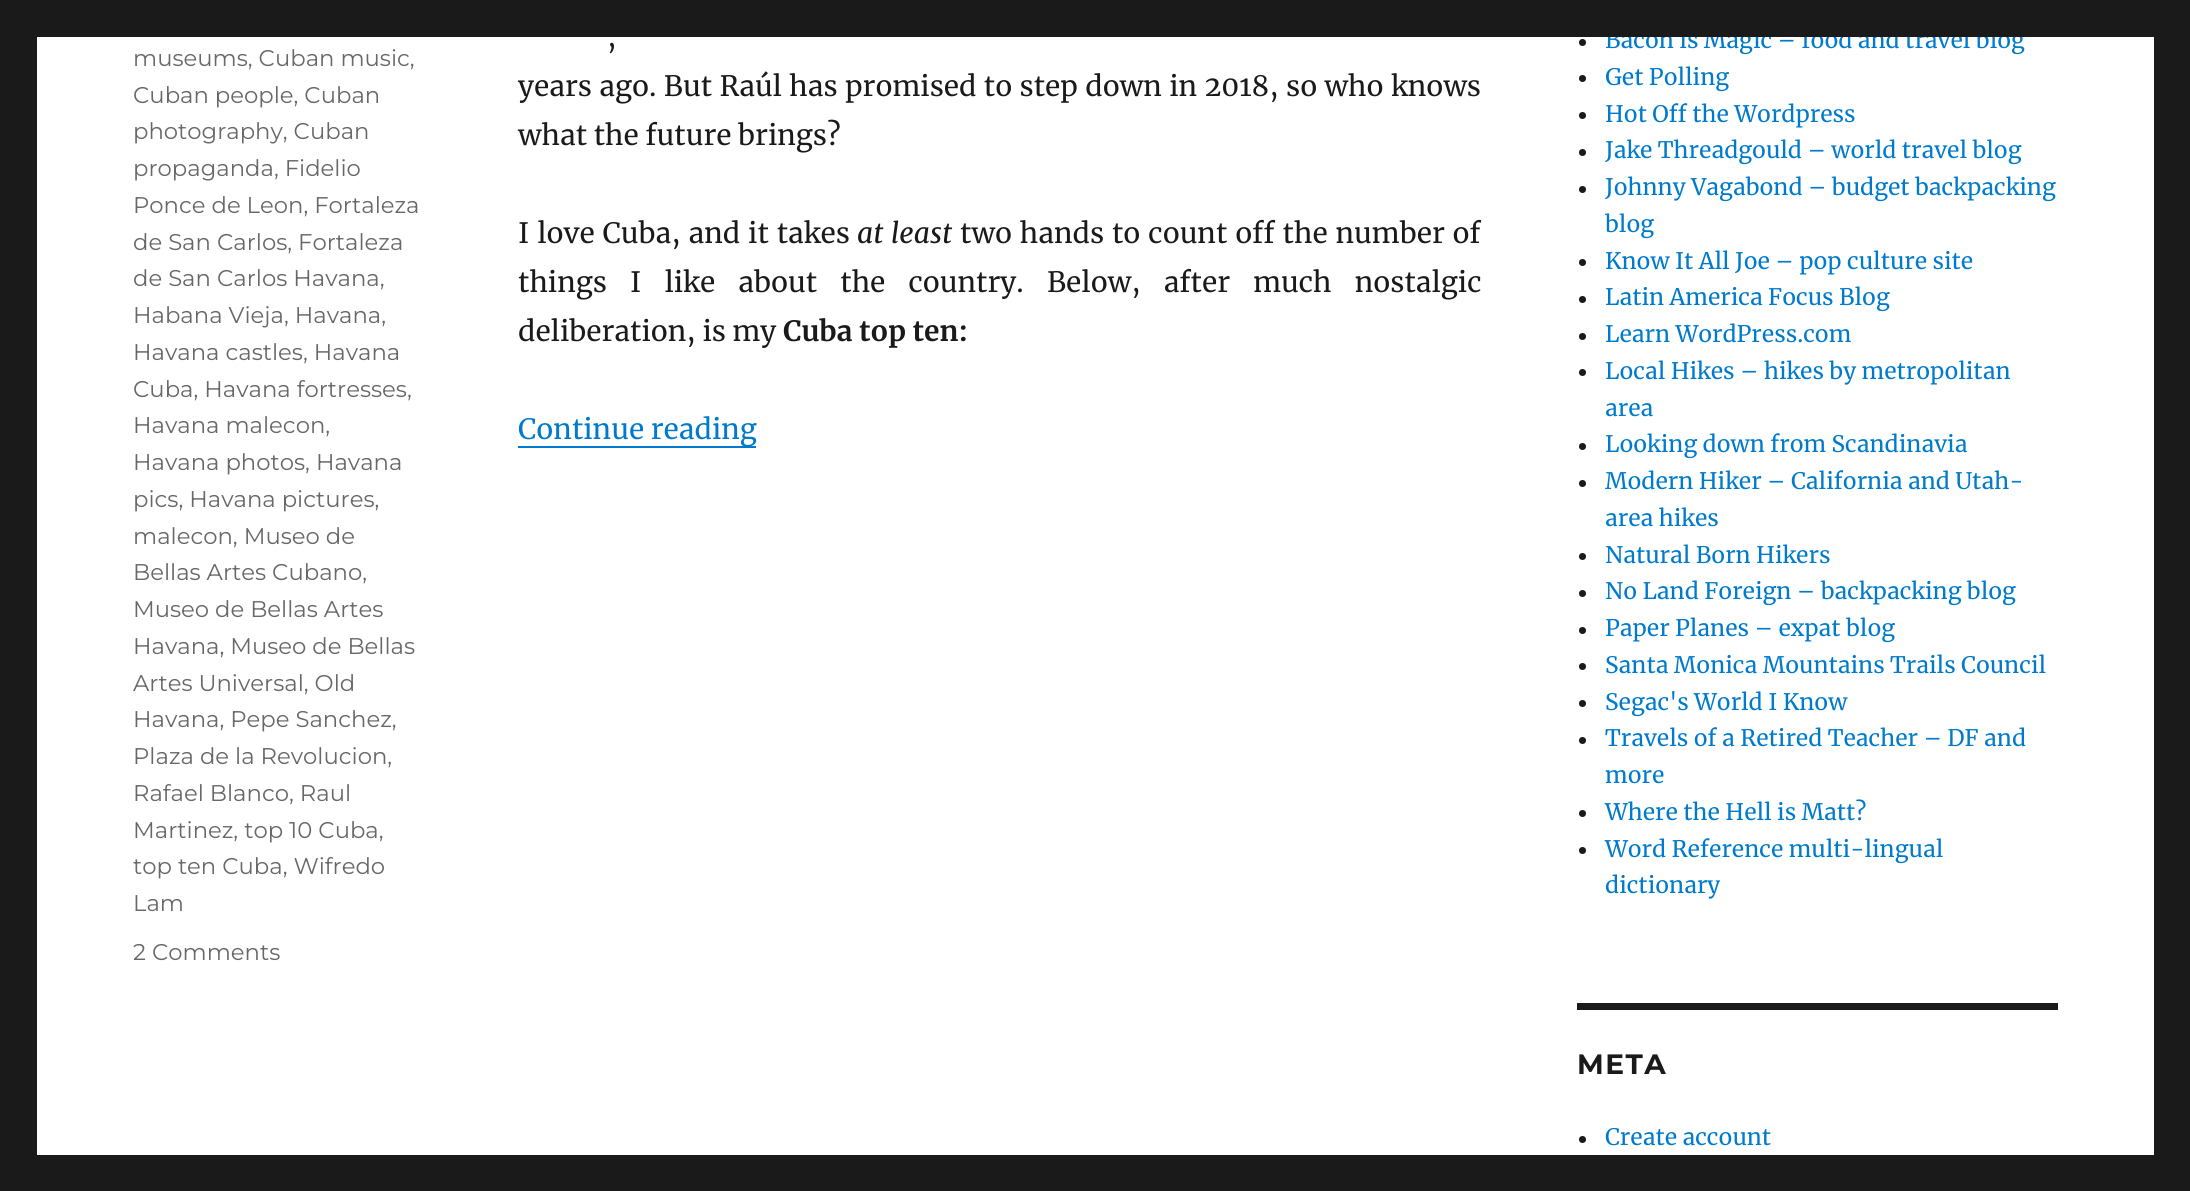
import math
import cairo

surface = cairo.ImageSurface(cairo.FORMAT_RGB24, 2190, 1191)
ctx = cairo.Context(surface)
options = cairo.FontOptions()
options.set_hint_metrics(cairo.HINT_METRICS_OFF)
options.set_hint_style(cairo.HINT_STYLE_NONE)
ctx.set_font_options(options)
ctx.set_miter_limit(4)


def set_color(code):
    ctx.set_source_rgb(*(v / 255 for v in bytes.fromhex(code[-6:])))


def draw_text(x, y, s, family, size, color, bold=False, italic=False):
    ctx.select_font_face(family, cairo.FONT_SLANT_ITALIC if italic else cairo.FONT_SLANT_NORMAL, cairo.FONT_WEIGHT_BOLD if bold else cairo.FONT_WEIGHT_NORMAL)
    ctx.set_font_size(size)
    set_color(color)
    ctx.move_to(x, y)
    ctx.show_text(s)


def draw_spaced(x, y, s, letter, word):
    ctx.move_to(x, y)
    for ch in s:
        ctx.show_text(ch)
        ctx.rel_move_to(letter + word * (ch == ' '), 0)


def fill_rect(x, y, w, h, color):
    set_color(color)
    ctx.rectangle(x, y, w, h)
    ctx.fill()


set_color("#1a1a1a")
ctx.paint()
fill_rect(37, 37, 2117, 1118, "#ffffff")
draw_text(133, 66, "museums, Cuban music,", "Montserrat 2 Thin", 22.75, "#686868")
draw_text(133, 103, "Cuban people, Cuban", "Montserrat 2 Thin", 22.75, "#686868")
draw_text(133, 139, "photography, Cuban", "Montserrat 2 Thin", 22.75, "#686868")
draw_text(133, 176, "propaganda, Fidelio", "Montserrat 2 Thin", 22.75, "#686868")
draw_text(133, 213, "Ponce de Leon, Fortaleza", "Montserrat 2 Thin", 22.75, "#686868")
draw_text(133, 250, "de San Carlos, Fortaleza", "Montserrat 2 Thin", 22.75, "#686868")
draw_text(133, 286, "de San Carlos Havana,", "Montserrat 2 Thin", 22.75, "#686868")
draw_text(133, 323, "Habana Vieja, Havana,", "Montserrat 2 Thin", 22.75, "#686868")
draw_text(133, 360, "Havana castles, Havana", "Montserrat 2 Thin", 22.75, "#686868")
draw_text(133, 397, "Cuba, Havana fortresses,", "Montserrat 2 Thin", 22.75, "#686868")
draw_text(133, 433, "Havana malecon,", "Montserrat 2 Thin", 22.75, "#686868")
draw_text(133, 470, "Havana photos, Havana", "Montserrat 2 Thin", 22.75, "#686868")
draw_text(133, 507, "pics, Havana pictures,", "Montserrat 2 Thin", 22.75, "#686868")
draw_text(133, 544, "malecon, Museo de", "Montserrat 2 Thin", 22.75, "#686868")
draw_text(133, 580, "Bellas Artes Cubano,", "Montserrat 2 Thin", 22.75, "#686868")
draw_text(133, 617, "Museo de Bellas Artes", "Montserrat 2 Thin", 22.75, "#686868")
draw_text(133, 654, "Havana, Museo de Bellas", "Montserrat 2 Thin", 22.75, "#686868")
draw_text(133, 691, "Artes Universal, Old", "Montserrat 2 Thin", 22.75, "#686868")
draw_text(133, 727, "Havana, Pepe Sanchez,", "Montserrat 2 Thin", 22.75, "#686868")
draw_text(133, 764, "Plaza de la Revolucion,", "Montserrat 2 Thin", 22.75, "#686868")
draw_text(133, 801, "Rafael Blanco, Raul", "Montserrat 2 Thin", 22.75, "#686868")
draw_text(133, 838, "Martinez, top 10 Cuba,", "Montserrat 2 Thin", 22.75, "#686868")
draw_text(133, 874, "top ten Cuba, Wifredo", "Montserrat 2 Thin", 22.75, "#686868")
draw_text(133, 911, "Lam", "Montserrat 2 Thin", 22.75, "#686868")
draw_text(133, 960, "2 Comments", "Montserrat 2 Thin", 22.75, "#686868")
ctx.select_font_face("Merriweather")
ctx.set_font_size(28)
set_color("#1a1a1a")
draw_spaced(607, 47, ",", 0, 7)
draw_spaced(518, 96, "years ago. But Raúl has promised to step down in 2018, so who knows", 0, 0.75)
draw_text(518, 145, "what the future brings?", "Merriweather", 28, "#1a1a1a")
draw_spaced(518, 243, "I love Cuba, and it takes", 0, 1.25)
ctx.select_font_face("Merriweather", cairo.FONT_SLANT_ITALIC)
draw_spaced(857, 243, "at least", 0, 1)
ctx.select_font_face("Merriweather")
draw_spaced(960, 243, "two hands to count off the number of", 0, 1.25)
draw_spaced(518, 292, "things I like about the country. Below, after much nostalgic", 0, 16.5)
draw_text(518, 341, "deliberation, is my", "Merriweather", 28, "#1a1a1a")
draw_text(783, 341, "Cuba top ten:", "Merriweather", 28, "#1a1a1a", bold=True)
fill_rect(518, 446, 238, 2, "#007acc")
draw_text(518, 439, "Continue reading", "Merriweather", 28, "#007acc")
set_color("#1a1a1a")
ctx.new_path()
ctx.arc(1582.5, 42.5, 3.5, 0, 2 * math.pi)
ctx.fill()
draw_text(1605, 48, "Bacon is Magic – food and travel blog", "Merriweather", 22.75, "#007acc")
set_color("#1a1a1a")
ctx.new_path()
ctx.arc(1582.5, 78.5, 3.5, 0, 2 * math.pi)
ctx.fill()
draw_text(1605, 85, "Get Polling", "Merriweather", 22.75, "#007acc")
set_color("#1a1a1a")
ctx.new_path()
ctx.arc(1582.5, 115.5, 3.5, 0, 2 * math.pi)
ctx.fill()
draw_text(1605, 122, "Hot Off the Wordpress", "Merriweather", 22.75, "#007acc")
set_color("#1a1a1a")
ctx.new_path()
ctx.arc(1582.5, 152.5, 3.5, 0, 2 * math.pi)
ctx.fill()
draw_text(1605, 158, "Jake Threadgould – world travel blog", "Merriweather", 22.75, "#007acc")
set_color("#1a1a1a")
ctx.new_path()
ctx.arc(1582.5, 189.5, 3.5, 0, 2 * math.pi)
ctx.fill()
draw_text(1605, 195, "Johnny Vagabond – budget backpacking", "Merriweather", 22.75, "#007acc")
draw_text(1605, 232, "blog", "Merriweather", 22.75, "#007acc")
set_color("#1a1a1a")
ctx.new_path()
ctx.arc(1582.5, 262.5, 3.5, 0, 2 * math.pi)
ctx.fill()
draw_text(1605, 269, "Know It All Joe – pop culture site", "Merriweather", 22.75, "#007acc")
set_color("#1a1a1a")
ctx.new_path()
ctx.arc(1582.5, 299.5, 3.5, 0, 2 * math.pi)
ctx.fill()
draw_text(1605, 305, "Latin America Focus Blog", "Merriweather", 22.75, "#007acc")
set_color("#1a1a1a")
ctx.new_path()
ctx.arc(1582.5, 336.5, 3.5, 0, 2 * math.pi)
ctx.fill()
draw_text(1605, 342, "Learn WordPress.com", "Merriweather", 22.75, "#007acc")
set_color("#1a1a1a")
ctx.new_path()
ctx.arc(1582.5, 372.5, 3.5, 0, 2 * math.pi)
ctx.fill()
draw_text(1605, 379, "Local Hikes – hikes by metropolitan", "Merriweather", 22.75, "#007acc")
draw_text(1605, 416, "area", "Merriweather", 22.75, "#007acc")
set_color("#1a1a1a")
ctx.new_path()
ctx.arc(1582.5, 446.5, 3.5, 0, 2 * math.pi)
ctx.fill()
draw_text(1605, 452, "Looking down from Scandinavia", "Merriweather", 22.75, "#007acc")
set_color("#1a1a1a")
ctx.new_path()
ctx.arc(1582.5, 483.5, 3.5, 0, 2 * math.pi)
ctx.fill()
draw_text(1605, 489, "Modern Hiker – California and Utah-", "Merriweather", 22.75, "#007acc")
draw_text(1605, 526, "area hikes", "Merriweather", 22.75, "#007acc")
set_color("#1a1a1a")
ctx.new_path()
ctx.arc(1582.5, 556.5, 3.5, 0, 2 * math.pi)
ctx.fill()
draw_text(1605, 563, "Natural Born Hikers", "Merriweather", 22.75, "#007acc")
set_color("#1a1a1a")
ctx.new_path()
ctx.arc(1582.5, 593.5, 3.5, 0, 2 * math.pi)
ctx.fill()
draw_text(1605, 599, "No Land Foreign – backpacking blog", "Merriweather", 22.75, "#007acc")
set_color("#1a1a1a")
ctx.new_path()
ctx.arc(1582.5, 630.5, 3.5, 0, 2 * math.pi)
ctx.fill()
draw_text(1605, 636, "Paper Planes – expat blog", "Merriweather", 22.75, "#007acc")
set_color("#1a1a1a")
ctx.new_path()
ctx.arc(1582.5, 666.5, 3.5, 0, 2 * math.pi)
ctx.fill()
draw_text(1605, 673, "Santa Monica Mountains Trails Council", "Merriweather", 22.75, "#007acc")
set_color("#1a1a1a")
ctx.new_path()
ctx.arc(1582.5, 703.5, 3.5, 0, 2 * math.pi)
ctx.fill()
draw_text(1605, 710, "Segac's World I Know", "Merriweather", 22.75, "#007acc")
set_color("#1a1a1a")
ctx.new_path()
ctx.arc(1582.5, 740.5, 3.5, 0, 2 * math.pi)
ctx.fill()
draw_text(1605, 746, "Travels of a Retired Teacher – DF and", "Merriweather", 22.75, "#007acc")
draw_text(1605, 783, "more", "Merriweather", 22.75, "#007acc")
set_color("#1a1a1a")
ctx.new_path()
ctx.arc(1582.5, 813.5, 3.5, 0, 2 * math.pi)
ctx.fill()
draw_text(1605, 820, "Where the Hell is Matt?", "Merriweather", 22.75, "#007acc")
set_color("#1a1a1a")
ctx.new_path()
ctx.arc(1582.5, 850.5, 3.5, 0, 2 * math.pi)
ctx.fill()
draw_text(1605, 857, "Word Reference multi-lingual", "Merriweather", 22.75, "#007acc")
draw_text(1605, 893, "dictionary", "Merriweather", 22.75, "#007acc")
fill_rect(1577, 1003, 481, 7, "#1a1a1a")
ctx.select_font_face("Montserrat Thin")
ctx.set_font_size(28)
draw_spaced(1577, 1074, "META", 1.5, 0)
ctx.new_path()
ctx.arc(1582.5, 1139.5, 3.5, 0, 2 * math.pi)
ctx.fill()
draw_text(1605, 1145, "Create account", "Merriweather", 22.75, "#007acc")
fill_rect(1606, 29, 419, 8, "#1a1a1a")
surface.write_to_png("output.png")
